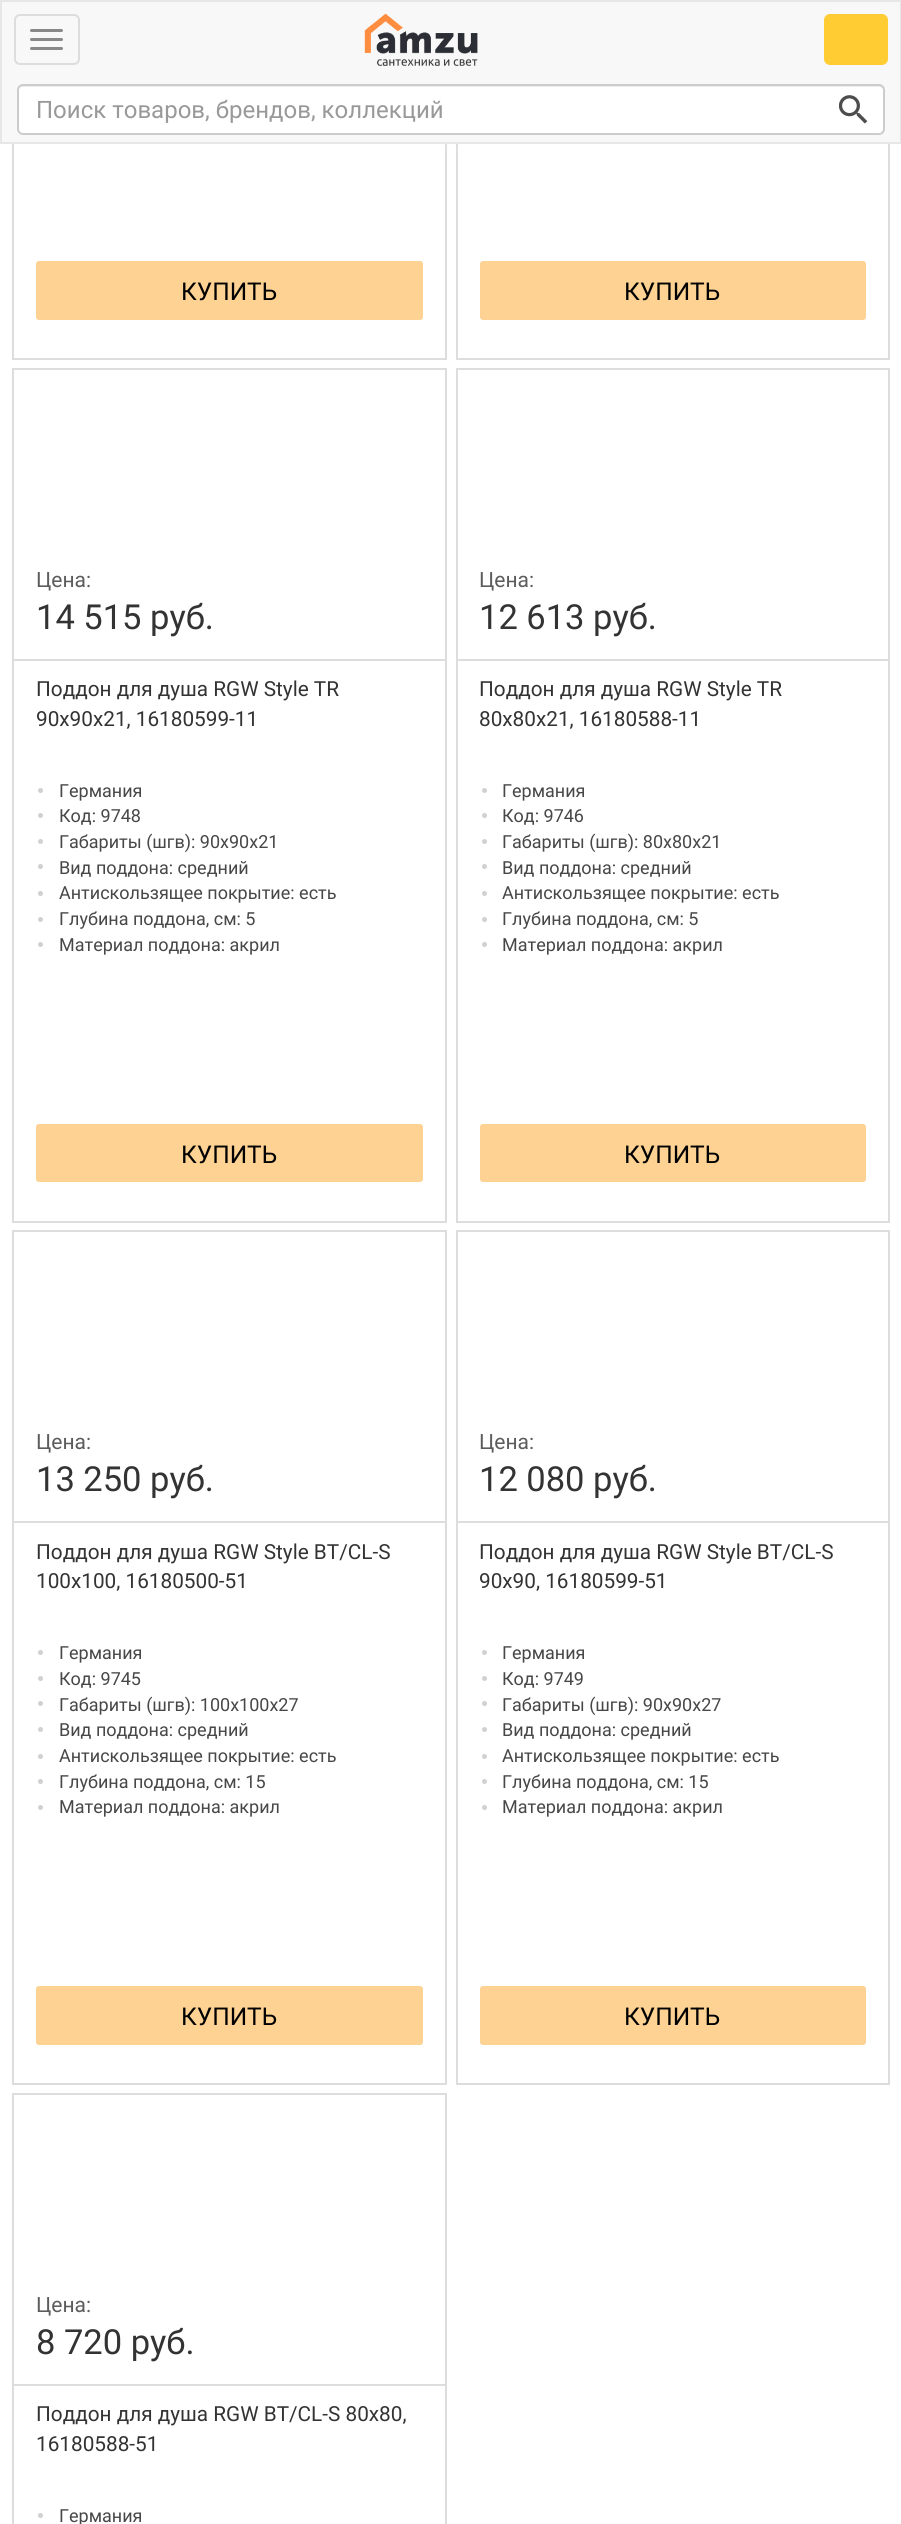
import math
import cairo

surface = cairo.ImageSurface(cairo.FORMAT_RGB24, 901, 2524)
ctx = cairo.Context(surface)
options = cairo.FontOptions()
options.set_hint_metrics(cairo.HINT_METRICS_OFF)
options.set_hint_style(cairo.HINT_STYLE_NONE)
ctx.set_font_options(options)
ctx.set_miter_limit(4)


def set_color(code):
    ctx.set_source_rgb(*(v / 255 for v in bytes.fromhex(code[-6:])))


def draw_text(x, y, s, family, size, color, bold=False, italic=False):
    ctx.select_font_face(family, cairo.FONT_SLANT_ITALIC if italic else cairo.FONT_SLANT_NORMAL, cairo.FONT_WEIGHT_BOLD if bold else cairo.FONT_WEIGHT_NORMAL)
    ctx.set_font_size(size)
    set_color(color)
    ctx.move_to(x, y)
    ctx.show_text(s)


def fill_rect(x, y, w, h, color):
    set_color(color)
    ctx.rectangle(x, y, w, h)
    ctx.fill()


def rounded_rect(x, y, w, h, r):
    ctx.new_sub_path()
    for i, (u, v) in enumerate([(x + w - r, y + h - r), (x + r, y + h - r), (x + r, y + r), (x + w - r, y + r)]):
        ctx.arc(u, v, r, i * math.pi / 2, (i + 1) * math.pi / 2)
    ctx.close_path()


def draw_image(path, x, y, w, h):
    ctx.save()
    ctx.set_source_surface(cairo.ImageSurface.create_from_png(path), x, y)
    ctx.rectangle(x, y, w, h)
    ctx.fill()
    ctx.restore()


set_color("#ffffff")
ctx.paint()
ctx.rectangle(13, -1, 433, 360)
set_color("#dddddd")
ctx.stroke()
ctx.rectangle(457, -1, 432, 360)
ctx.stroke()
set_color("#f8f8f8")
ctx.rectangle(1, 1, 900, 142)
ctx.fill_preserve()
set_color("#e7e7e7")
ctx.stroke()
rounded_rect(15, 15, 64, 49, 5)
set_color("#dddddd")
ctx.stroke()
set_color("#888888")
rounded_rect(30, 29, 33, 3, 1.5)
ctx.fill()
rounded_rect(30, 38, 33, 3, 1.5)
ctx.fill()
rounded_rect(30, 47, 33, 3, 1.5)
ctx.fill()
draw_image("assets/img1.png", 364, 13, 114, 53)
set_color("#ffcc33")
rounded_rect(825, 15, 62, 49, 5)
ctx.fill_preserve()
ctx.stroke()
ctx.set_source_rgba(1, 1, 1, 0.1)
ctx.rectangle(445, 150, 13, 2)
ctx.fill()
set_color("#ffffff")
rounded_rect(17, 84, 868, 51, 6)
ctx.fill()
set_color("#ececec")
ctx.new_path()
ctx.move_to(22, 87)
ctx.line_to(879, 87)
ctx.curve_to(881, 87, 884, 89, 884, 92)
ctx.line_to(884, 91)
ctx.curve_to(884, 88, 882, 86, 879, 86)
ctx.line_to(23, 86)
ctx.curve_to(20, 86, 18, 88, 18, 91)
ctx.line_to(18, 92)
ctx.curve_to(18, 89, 20, 87, 22, 87)
ctx.close_path()
ctx.fill()
rounded_rect(18, 85, 866, 49, 5)
set_color("#cccccc")
ctx.stroke()
draw_text(36, 118, "Поиск товаров, брендов, коллекций", "Roboto", 24, "#999999")
draw_image("assets/img2.png", 839, 95, 29, 29)
set_color("#fdd292")
rounded_rect(37, 262, 385, 57, 2)
ctx.fill_preserve()
ctx.stroke()
draw_text(181, 300, "КУПИТЬ", "Roboto", 24.5, "#000000")
set_color("#fdd292")
rounded_rect(481, 262, 384, 57, 2)
ctx.fill_preserve()
ctx.stroke()
draw_text(624, 300, "КУПИТЬ", "Roboto", 24.5, "#000000")
ctx.rectangle(13, 369, 433, 853)
set_color("#dddddd")
ctx.stroke()
draw_text(36, 587, "Цена:", "Roboto", 21, "#5c5c5c")
draw_text(36, 629, "14 515 руб.", "Roboto", 34.5, "#333333")
fill_rect(14, 659, 432, 2, "#dddddd")
draw_text(36, 696, "Поддон для душа RGW Style TR", "Roboto", 20.75, "#333333")
draw_text(36, 726, "90x90x21, 16180599-11", "Roboto", 20.75, "#333333")
set_color("#d1d1d1")
ctx.new_path()
ctx.arc(40.5, 790.5, 2.5, 0, 2 * math.pi)
ctx.fill()
draw_text(59, 797, "Германия", "Roboto", 18, "#474747")
set_color("#d1d1d1")
ctx.new_path()
ctx.arc(40.5, 815.5, 2.5, 0, 2 * math.pi)
ctx.fill()
draw_text(59, 822, "Код: 9748", "Roboto", 18, "#474747")
set_color("#d1d1d1")
ctx.new_path()
ctx.arc(40.5, 841.5, 2.5, 0, 2 * math.pi)
ctx.fill()
draw_text(59, 848, "Габариты (шгв): 90x90x21", "Roboto", 18, "#474747")
set_color("#d1d1d1")
ctx.new_path()
ctx.arc(40.5, 866.5, 2.5, 0, 2 * math.pi)
ctx.fill()
draw_text(59, 874, "Вид поддона: средний", "Roboto", 18, "#474747")
set_color("#d1d1d1")
ctx.new_path()
ctx.arc(40.5, 893.5, 2.5, 0, 2 * math.pi)
ctx.fill()
draw_text(59, 899, "Антискользящее покрытие: есть", "Roboto", 18, "#474747")
set_color("#d1d1d1")
ctx.new_path()
ctx.arc(40.5, 919.5, 2.5, 0, 2 * math.pi)
ctx.fill()
draw_text(59, 925, "Глубина поддона, см: 5", "Roboto", 18, "#474747")
set_color("#d1d1d1")
ctx.new_path()
ctx.arc(40.5, 944.5, 2.5, 0, 2 * math.pi)
ctx.fill()
draw_text(59, 951, "Материал поддона: акрил", "Roboto", 18, "#474747")
set_color("#fdd292")
rounded_rect(37, 1125, 385, 56, 2)
ctx.fill_preserve()
ctx.stroke()
draw_text(181, 1163, "КУПИТЬ", "Roboto", 24.5, "#000000")
ctx.rectangle(457, 369, 432, 853)
set_color("#dddddd")
ctx.stroke()
draw_text(479, 587, "Цена:", "Roboto", 21, "#5c5c5c")
draw_text(479, 629, "12 613 руб.", "Roboto", 34.5, "#333333")
fill_rect(458, 659, 430, 2, "#dddddd")
draw_text(479, 696, "Поддон для душа RGW Style TR", "Roboto", 20.75, "#333333")
draw_text(479, 726, "80x80x21, 16180588-11", "Roboto", 20.75, "#333333")
set_color("#d1d1d1")
ctx.new_path()
ctx.arc(484.5, 790.5, 2.5, 0, 2 * math.pi)
ctx.fill()
draw_text(502, 797, "Германия", "Roboto", 18, "#474747")
set_color("#d1d1d1")
ctx.new_path()
ctx.arc(484.5, 815.5, 2.5, 0, 2 * math.pi)
ctx.fill()
draw_text(502, 822, "Код: 9746", "Roboto", 18, "#474747")
set_color("#d1d1d1")
ctx.new_path()
ctx.arc(484.5, 841.5, 2.5, 0, 2 * math.pi)
ctx.fill()
draw_text(502, 848, "Габариты (шгв): 80x80x21", "Roboto", 18, "#474747")
set_color("#d1d1d1")
ctx.new_path()
ctx.arc(484.5, 866.5, 2.5, 0, 2 * math.pi)
ctx.fill()
draw_text(502, 874, "Вид поддона: средний", "Roboto", 18, "#474747")
set_color("#d1d1d1")
ctx.new_path()
ctx.arc(484.5, 893.5, 2.5, 0, 2 * math.pi)
ctx.fill()
draw_text(502, 899, "Антискользящее покрытие: есть", "Roboto", 18, "#474747")
set_color("#d1d1d1")
ctx.new_path()
ctx.arc(484.5, 919.5, 2.5, 0, 2 * math.pi)
ctx.fill()
draw_text(502, 925, "Глубина поддона, см: 5", "Roboto", 18, "#474747")
set_color("#d1d1d1")
ctx.new_path()
ctx.arc(484.5, 944.5, 2.5, 0, 2 * math.pi)
ctx.fill()
draw_text(502, 951, "Материал поддона: акрил", "Roboto", 18, "#474747")
set_color("#fdd292")
rounded_rect(481, 1125, 384, 56, 2)
ctx.fill_preserve()
ctx.stroke()
draw_text(624, 1163, "КУПИТЬ", "Roboto", 24.5, "#000000")
ctx.rectangle(13, 1231, 433, 853)
set_color("#dddddd")
ctx.stroke()
draw_text(36, 1449, "Цена:", "Roboto", 21, "#5c5c5c")
draw_text(36, 1491, "13 250 руб.", "Roboto", 34.5, "#333333")
fill_rect(14, 1521, 432, 2, "#dddddd")
draw_text(36, 1559, "Поддон для душа RGW Style BТ/CL-S", "Roboto", 20.75, "#333333")
draw_text(36, 1588, "100х100, 16180500-51", "Roboto", 20.75, "#333333")
set_color("#d1d1d1")
ctx.new_path()
ctx.arc(40.5, 1652.5, 2.5, 0, 2 * math.pi)
ctx.fill()
draw_text(59, 1659, "Германия", "Roboto", 18, "#474747")
set_color("#d1d1d1")
ctx.new_path()
ctx.arc(40.5, 1678.5, 2.5, 0, 2 * math.pi)
ctx.fill()
draw_text(59, 1685, "Код: 9745", "Roboto", 18, "#474747")
set_color("#d1d1d1")
ctx.new_path()
ctx.arc(40.5, 1703.5, 2.5, 0, 2 * math.pi)
ctx.fill()
draw_text(59, 1711, "Габариты (шгв): 100x100x27", "Roboto", 18, "#474747")
set_color("#d1d1d1")
ctx.new_path()
ctx.arc(40.5, 1729.5, 2.5, 0, 2 * math.pi)
ctx.fill()
draw_text(59, 1736, "Вид поддона: средний", "Roboto", 18, "#474747")
set_color("#d1d1d1")
ctx.new_path()
ctx.arc(40.5, 1756.5, 2.5, 0, 2 * math.pi)
ctx.fill()
draw_text(59, 1762, "Антискользящее покрытие: есть", "Roboto", 18, "#474747")
set_color("#d1d1d1")
ctx.new_path()
ctx.arc(40.5, 1781.5, 2.5, 0, 2 * math.pi)
ctx.fill()
draw_text(59, 1788, "Глубина поддона, см: 15", "Roboto", 18, "#474747")
set_color("#d1d1d1")
ctx.new_path()
ctx.arc(40.5, 1807.5, 2.5, 0, 2 * math.pi)
ctx.fill()
draw_text(59, 1813, "Материал поддона: акрил", "Roboto", 18, "#474747")
set_color("#fdd292")
rounded_rect(37, 1987, 385, 57, 2)
ctx.fill_preserve()
ctx.stroke()
draw_text(181, 2025, "КУПИТЬ", "Roboto", 24.5, "#000000")
ctx.rectangle(457, 1231, 432, 853)
set_color("#dddddd")
ctx.stroke()
draw_text(479, 1449, "Цена:", "Roboto", 21, "#5c5c5c")
draw_text(479, 1491, "12 080 руб.", "Roboto", 34.5, "#333333")
fill_rect(458, 1521, 430, 2, "#dddddd")
draw_text(479, 1559, "Поддон для душа RGW Style BТ/CL-S", "Roboto", 20.75, "#333333")
draw_text(479, 1588, "90х90, 16180599-51", "Roboto", 20.75, "#333333")
set_color("#d1d1d1")
ctx.new_path()
ctx.arc(484.5, 1652.5, 2.5, 0, 2 * math.pi)
ctx.fill()
draw_text(502, 1659, "Германия", "Roboto", 18, "#474747")
set_color("#d1d1d1")
ctx.new_path()
ctx.arc(484.5, 1678.5, 2.5, 0, 2 * math.pi)
ctx.fill()
draw_text(502, 1685, "Код: 9749", "Roboto", 18, "#474747")
set_color("#d1d1d1")
ctx.new_path()
ctx.arc(484.5, 1703.5, 2.5, 0, 2 * math.pi)
ctx.fill()
draw_text(502, 1711, "Габариты (шгв): 90x90x27", "Roboto", 18, "#474747")
set_color("#d1d1d1")
ctx.new_path()
ctx.arc(484.5, 1729.5, 2.5, 0, 2 * math.pi)
ctx.fill()
draw_text(502, 1736, "Вид поддона: средний", "Roboto", 18, "#474747")
set_color("#d1d1d1")
ctx.new_path()
ctx.arc(484.5, 1756.5, 2.5, 0, 2 * math.pi)
ctx.fill()
draw_text(502, 1762, "Антискользящее покрытие: есть", "Roboto", 18, "#474747")
set_color("#d1d1d1")
ctx.new_path()
ctx.arc(484.5, 1781.5, 2.5, 0, 2 * math.pi)
ctx.fill()
draw_text(502, 1788, "Глубина поддона, см: 15", "Roboto", 18, "#474747")
set_color("#d1d1d1")
ctx.new_path()
ctx.arc(484.5, 1807.5, 2.5, 0, 2 * math.pi)
ctx.fill()
draw_text(502, 1813, "Материал поддона: акрил", "Roboto", 18, "#474747")
set_color("#fdd292")
rounded_rect(481, 1987, 384, 57, 2)
ctx.fill_preserve()
ctx.stroke()
draw_text(624, 2025, "КУПИТЬ", "Roboto", 24.5, "#000000")
ctx.rectangle(13, 2094, 433, 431)
set_color("#dddddd")
ctx.stroke()
draw_text(36, 2312, "Цена:", "Roboto", 21, "#5c5c5c")
draw_text(36, 2354, "8 720 руб.", "Roboto", 34.5, "#333333")
fill_rect(14, 2384, 432, 2, "#dddddd")
draw_text(36, 2421, "Поддон для душа RGW BТ/CL-S 80х80,", "Roboto", 20.75, "#333333")
draw_text(36, 2451, "16180588-51", "Roboto", 20.75, "#333333")
set_color("#d1d1d1")
ctx.new_path()
ctx.arc(40.5, 2515.5, 2.5, 0, 2 * math.pi)
ctx.fill()
draw_text(59, 2522, "Германия", "Roboto", 18, "#474747")
surface.write_to_png("output.png")
